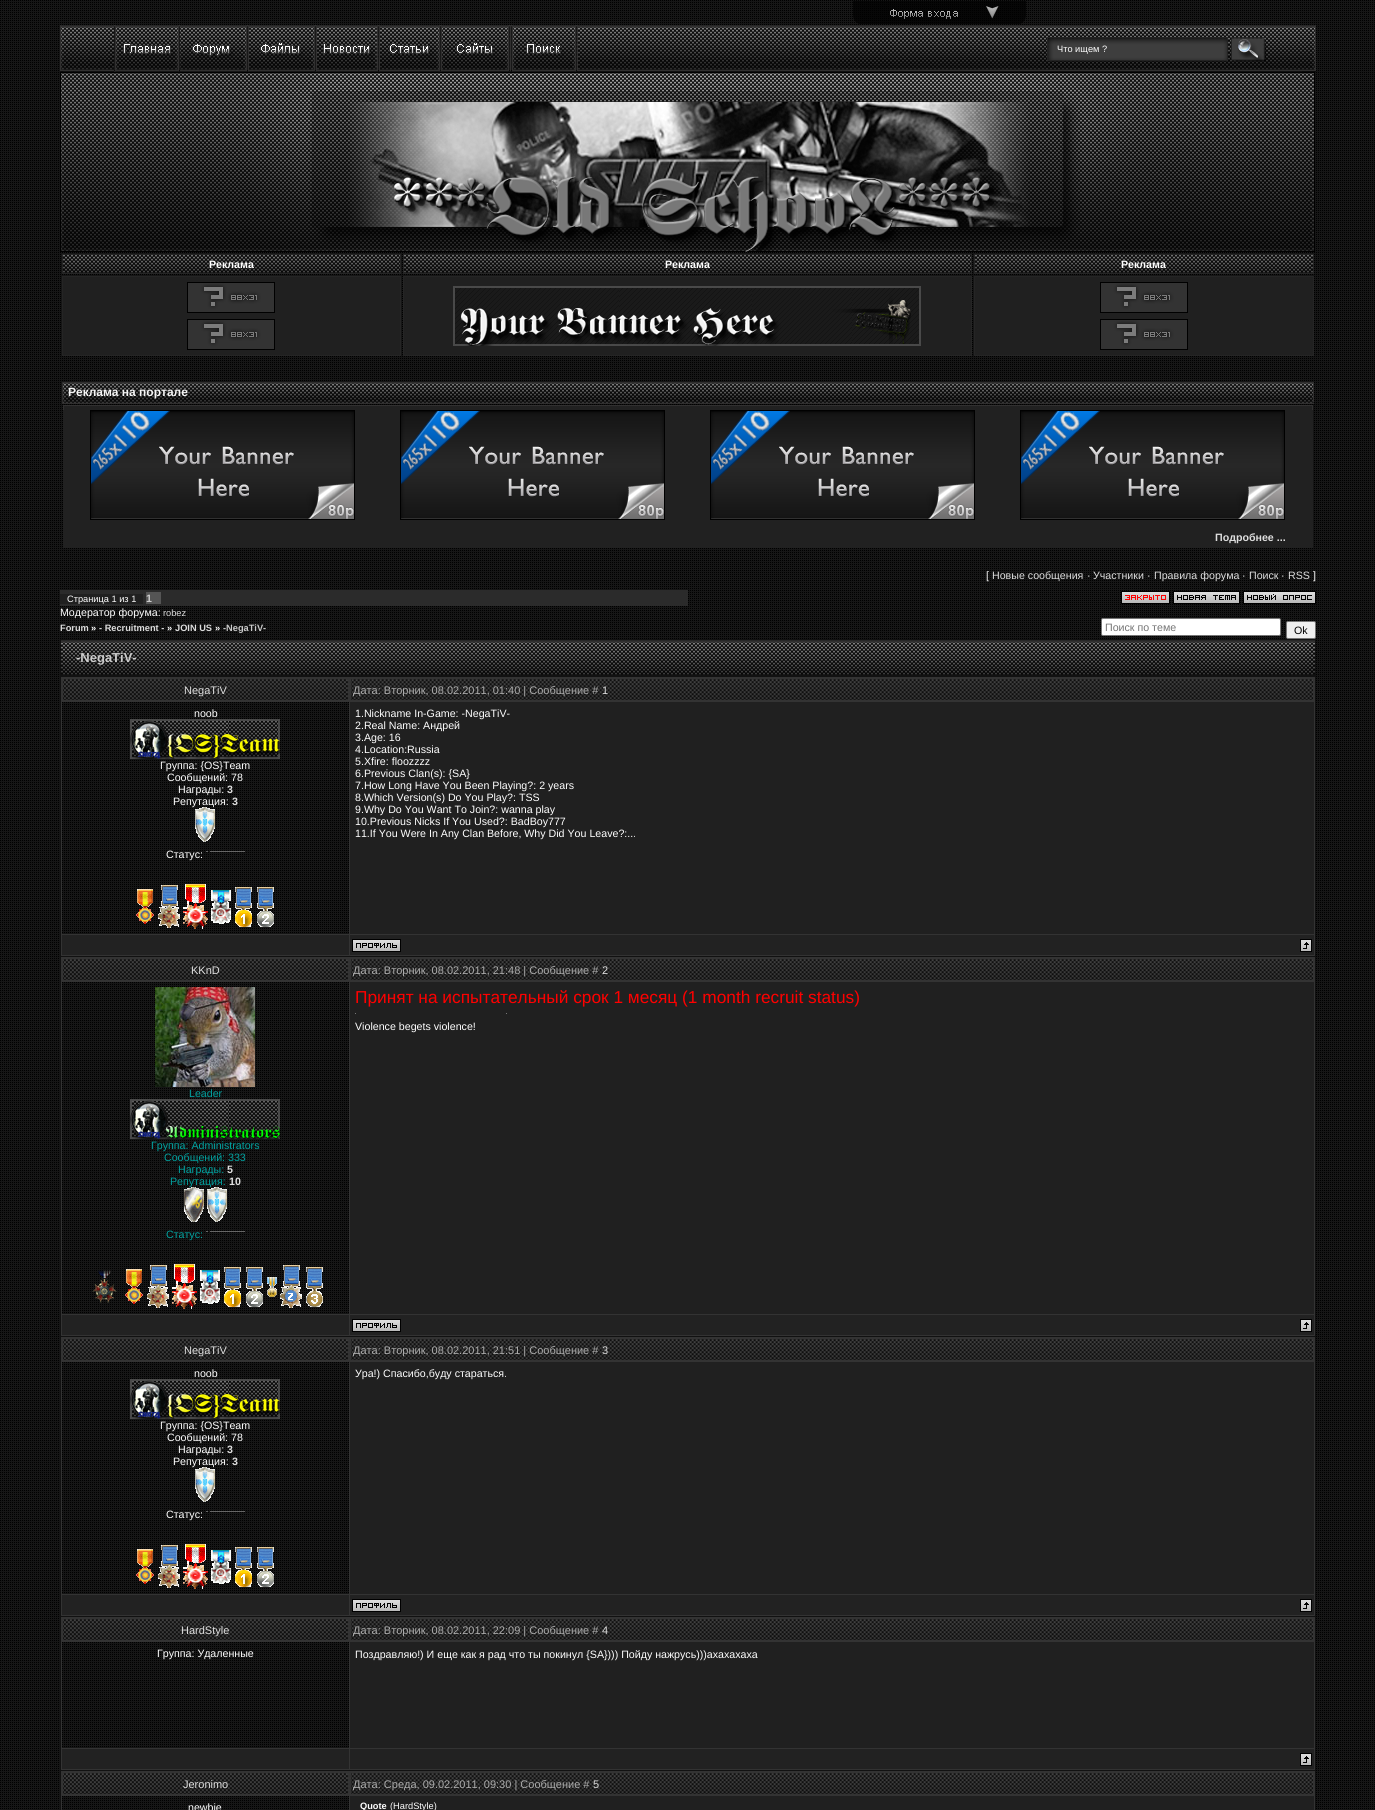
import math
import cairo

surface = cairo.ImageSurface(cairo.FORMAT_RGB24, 1375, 1810)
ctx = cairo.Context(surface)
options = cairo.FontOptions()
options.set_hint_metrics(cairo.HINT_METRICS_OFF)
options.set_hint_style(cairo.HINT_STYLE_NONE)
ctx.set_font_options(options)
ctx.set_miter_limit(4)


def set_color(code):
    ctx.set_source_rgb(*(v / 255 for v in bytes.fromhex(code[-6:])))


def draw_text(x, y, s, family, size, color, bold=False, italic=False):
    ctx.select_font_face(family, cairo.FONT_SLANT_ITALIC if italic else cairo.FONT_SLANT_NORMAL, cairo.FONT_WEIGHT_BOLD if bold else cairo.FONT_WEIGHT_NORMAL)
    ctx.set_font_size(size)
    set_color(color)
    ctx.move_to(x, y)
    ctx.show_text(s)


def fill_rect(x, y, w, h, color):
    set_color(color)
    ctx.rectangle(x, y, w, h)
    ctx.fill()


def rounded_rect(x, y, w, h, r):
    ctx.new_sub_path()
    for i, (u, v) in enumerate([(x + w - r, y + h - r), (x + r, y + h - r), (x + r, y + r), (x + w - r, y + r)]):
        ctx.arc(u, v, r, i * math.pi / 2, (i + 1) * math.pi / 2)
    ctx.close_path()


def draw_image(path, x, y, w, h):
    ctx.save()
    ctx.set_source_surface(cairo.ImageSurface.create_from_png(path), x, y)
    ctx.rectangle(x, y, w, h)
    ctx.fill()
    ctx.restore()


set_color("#ffffff")
ctx.paint()
draw_image("assets/img1.png", 0, 0, 1375, 1810)
draw_image("assets/img2.png", 853, 1, 173, 23)
draw_image("assets/img3.png", 986, 6, 13, 13)
draw_image("assets/img4.png", 60, 25, 14, 47)
draw_image("assets/img5.png", 74, 25, 888, 47)
draw_image("assets/img6.png", 114, 25, 66, 47)
draw_image("assets/img7.png", 180, 25, 69, 47)
draw_image("assets/img8.png", 249, 25, 68, 47)
draw_image("assets/img9.png", 317, 25, 63, 47)
draw_image("assets/img10.png", 380, 25, 62, 47)
draw_image("assets/img11.png", 442, 25, 68, 47)
draw_image("assets/img12.png", 510, 25, 68, 47)
draw_image("assets/img13.png", 962, 25, 340, 47)
draw_image("assets/img14.png", 1047, 37, 181, 24)
draw_text(1057, 52, "Что ищем ?", "Liberation Sans", 9.25, "#ffffff")
draw_image("assets/img15.png", 1231, 37, 35, 24)
draw_image("assets/img16.png", 1302, 25, 14, 47)
draw_image("assets/img17.png", 60, 72, 14, 180)
draw_image("assets/img18.png", 74, 72, 132, 180)
draw_image("assets/img19.png", 206, 72, 964, 180)
draw_image("assets/img20.png", 1170, 72, 133, 180)
draw_image("assets/img21.png", 1303, 72, 12, 180)
draw_image("assets/img22.png", 63, 255, 337, 18)
ctx.rectangle(62.5, 254.5, 338, 19)
set_color("#252525")
ctx.set_line_width(1)
ctx.stroke()
draw_text(209, 268, "Реклама", "Liberation Sans", 10.65, "#ffffff", bold=True)
draw_image("assets/img23.png", 404, 255, 567, 18)
ctx.rectangle(403.5, 254.5, 568, 19)
set_color("#252525")
ctx.stroke()
draw_text(665, 268, "Реклама", "Liberation Sans", 10.65, "#ffffff", bold=True)
draw_image("assets/img24.png", 975, 255, 338, 18)
ctx.rectangle(974.5, 254.5, 339, 19)
set_color("#252525")
ctx.stroke()
draw_text(1121, 268, "Реклама", "Liberation Sans", 10.65, "#ffffff", bold=True)
set_color("#202020")
ctx.rectangle(62.5, 276.5, 338, 79)
ctx.fill_preserve()
set_color("#252525")
ctx.stroke()
draw_image("assets/img25.png", 187, 282, 88, 31)
draw_image("assets/img25.png", 187, 319, 88, 31)
set_color("#202020")
ctx.rectangle(403.5, 276.5, 568, 79)
ctx.fill_preserve()
set_color("#252525")
ctx.stroke()
draw_image("assets/img26.png", 453, 286, 468, 60)
set_color("#202020")
ctx.rectangle(974.5, 276.5, 339, 79)
ctx.fill_preserve()
set_color("#252525")
ctx.stroke()
draw_image("assets/img25.png", 1100, 282, 88, 31)
draw_image("assets/img25.png", 1100, 319, 88, 31)
draw_image("assets/img27.png", 62, 382, 6, 25)
draw_image("assets/img28.png", 68, 382, 1088, 25)
draw_text(68, 396, "Реклама на портале", "Liberation Sans", 12, "#f5f5f5", bold=True)
draw_image("assets/img29.png", 1156, 382, 152, 25)
draw_image("assets/img30.png", 1308, 382, 6, 25)
draw_image("assets/img31.png", 63, 407, 2, 3)
fill_rect(65, 407, 1246, 3, "#212121")
draw_image("assets/img32.png", 1311, 407, 2, 3)
fill_rect(63, 410, 1250, 115, "#212121")
draw_image("assets/img33.png", 90, 410, 265, 110)
draw_image("assets/img33.png", 400, 410, 265, 110)
draw_image("assets/img33.png", 710, 410, 265, 110)
draw_image("assets/img33.png", 1020, 410, 265, 110)
fill_rect(63, 525, 1250, 23, "#212121")
draw_text(1215, 541, "Подробнее ...", "Liberation Sans", 10.65, "#dedede", bold=True)
draw_text(986, 579, "[", "Liberation Sans", 10.65, "#ffffff")
draw_text(992, 579, "Новые сообщения", "Liberation Sans", 10.65, "#dedede")
draw_text(1087, 579, "·", "Liberation Sans", 10.65, "#ffffff")
draw_text(1093, 579, "Участники", "Liberation Sans", 10.65, "#dedede")
draw_text(1147, 579, "·", "Liberation Sans", 10.65, "#ffffff")
draw_text(1154, 579, "Правила форума", "Liberation Sans", 10.65, "#dedede")
draw_text(1242, 579, "·", "Liberation Sans", 10.65, "#ffffff")
draw_text(1249, 579, "Поиск", "Liberation Sans", 10.65, "#dedede")
draw_text(1281, 579, "·", "Liberation Sans", 10.65, "#ffffff")
draw_text(1288, 579, "RSS", "Liberation Sans", 10.65, "#dedede")
draw_text(1313, 579, "]", "Liberation Sans", 10.65, "#ffffff")
fill_rect(60, 590, 628, 16, "#2b2b2b")
fill_rect(60, 594, 83, 10, "#202020")
draw_text(67, 602, "Страница 1 из 1", "Liberation Sans", 9.25, "#ffffff")
fill_rect(146, 592, 15, 12, "#555555")
draw_text(146, 602, "1", "Liberation Sans", 10.65, "#cccccc", bold=True)
draw_image("assets/img34.png", 1121, 591, 49, 13)
draw_image("assets/img35.png", 1173, 591, 67, 13)
draw_image("assets/img36.png", 1243, 591, 73, 13)
draw_text(60, 616, "Модератор форума:", "Liberation Sans", 10.65, "#ffffff")
draw_text(163, 616, "robez", "Liberation Sans", 9.25, "#dedede")
draw_text(60, 631, "Forum", "Liberation Sans", 9.25, "#dedede", bold=True)
draw_text(91, 631, "»", "Liberation Sans", 9.25, "#ffffff", bold=True)
draw_text(99, 631, "- Recruitment -", "Liberation Sans", 9.25, "#dedede", bold=True)
draw_text(167, 631, "»", "Liberation Sans", 9.25, "#ffffff", bold=True)
draw_text(175, 631, "JOIN US", "Liberation Sans", 9.25, "#dedede", bold=True)
draw_text(215, 631, "»", "Liberation Sans", 9.25, "#ffffff", bold=True)
draw_text(223, 631, "-NegaTiV-", "Liberation Sans", 9.25, "#cccccc", bold=True)
set_color("#ffffff")
rounded_rect(1101.5, 618.5, 179, 17, 1.5)
ctx.fill_preserve()
set_color("#767676")
ctx.stroke()
draw_text(1105, 631, "Поиск по теме", "Liberation Sans", 10.65, "#757575")
set_color("#efefef")
rounded_rect(1286.5, 621.5, 29, 17, 1.5)
ctx.fill_preserve()
set_color("#767676")
ctx.stroke()
draw_text(1294, 634, "Ok", "Liberation Sans", 10.65, "#000000")
fill_rect(60, 639, 1256, 1171, "#111111")
draw_image("assets/img37.png", 61, 640, 1254, 35)
draw_text(76, 662, "-NegaTiV-", "Liberation Sans", 13, "#cccccc", bold=True)
fill_rect(61, 677, 1254, 279, "#333333")
draw_image("assets/img38.png", 63, 679, 285, 21)
draw_text(184, 694, "NegaTiV", "Liberation Sans", 11, "#dedede")
draw_image("assets/img39.png", 351, 679, 962, 21)
draw_text(353, 694, "Дата: Вторник, 08.02.2011, 01:40 | Сообщение #", "Liberation Sans", 11, "#acacac")
draw_text(602, 694, "1", "Liberation Sans", 11, "#dedede")
draw_image("assets/img40.png", 62, 702, 287, 232)
draw_text(194, 717, "noob", "Liberation Sans", 10.65, "#ffffff")
draw_image("assets/img41.png", 130, 719, 150, 40)
draw_text(160, 769, "Группа: {OS}Team", "Liberation Sans", 10.65, "#ffffff")
draw_text(167, 781, "Сообщений: 78", "Liberation Sans", 10.65, "#ffffff")
draw_text(178, 793, "Награды:", "Liberation Sans", 10.65, "#ffffff")
draw_text(227, 793, "3", "Liberation Sans", 10.65, "#dedede", bold=True)
draw_text(173, 805, "Репутация:", "Liberation Sans", 10.65, "#ffffff")
draw_text(232, 805, "3", "Liberation Sans", 10.65, "#dedede", bold=True)
draw_image("assets/img42.png", 195, 807, 20, 35)
draw_text(166, 858, "Статус:", "Liberation Sans", 10.65, "#ffffff")
draw_image("assets/img43.png", 206, 851, 39, 1)
draw_image("assets/img44.png", 136, 889, 18, 35)
draw_image("assets/img45.png", 158, 885, 22, 43)
draw_image("assets/img46.png", 183, 884, 25, 45)
draw_image("assets/img47.png", 211, 890, 20, 34)
draw_image("assets/img48.png", 235, 887, 17, 40)
draw_image("assets/img49.png", 257, 887, 17, 40)
fill_rect(350, 702, 964, 232, "#202020")
draw_text(355, 717, "1.Nickname In-Game: -NegaTiV-", "Liberation Sans", 10.65, "#ffffff")
draw_text(355, 729, "2.Real Name: Андрей", "Liberation Sans", 10.65, "#ffffff")
draw_text(355, 741, "3.Age: 16", "Liberation Sans", 10.65, "#ffffff")
draw_text(355, 753, "4.Location:Russia", "Liberation Sans", 10.65, "#ffffff")
draw_text(355, 765, "5.Xfire: floozzzz", "Liberation Sans", 10.65, "#ffffff")
draw_text(355, 777, "6.Previous Clan(s): {SA}", "Liberation Sans", 10.65, "#ffffff")
draw_text(355, 789, "7.How Long Have You Been Playing?: 2 years", "Liberation Sans", 10.65, "#ffffff")
draw_text(355, 801, "8.Which Version(s) Do You Play?: TSS", "Liberation Sans", 10.65, "#ffffff")
draw_text(355, 813, "9.Why Do You Want To Join?: wanna play", "Liberation Sans", 10.65, "#ffffff")
draw_text(355, 825, "10.Previous Nicks If You Used?: BadBoy777", "Liberation Sans", 10.65, "#ffffff")
draw_text(355, 837, "11.If You Were In Any Clan Before, Why Did You Leave?:...", "Liberation Sans", 10.65, "#ffffff")
fill_rect(62, 935, 287, 20, "#222222")
fill_rect(350, 935, 964, 20, "#222222")
draw_image("assets/img50.png", 352, 939, 49, 13)
draw_image("assets/img51.png", 1300, 939, 12, 13)
fill_rect(61, 957, 1254, 379, "#333333")
draw_image("assets/img38.png", 63, 959, 285, 21)
draw_text(191, 974, "KKnD", "Liberation Sans", 11, "#dedede")
draw_image("assets/img39.png", 351, 959, 962, 21)
draw_text(353, 974, "Дата: Вторник, 08.02.2011, 21:48 | Сообщение #", "Liberation Sans", 11, "#acacac")
draw_text(602, 974, "2", "Liberation Sans", 11, "#dedede")
fill_rect(350, 982, 964, 332, "#202020")
draw_text(355, 1003, "Принят на испытательный срок 1 месяц (1 month recruit status)", "Liberation Sans", 17.3, "#ff0000")
fill_rect(506, 1013, 1, 1, "#777777")
fill_rect(355, 1013, 1, 1, "#777777")
draw_text(355, 1030, "Violence begets violence!", "Liberation Sans", 10.65, "#ffffff")
draw_image("assets/img52.png", 62, 982, 287, 332)
draw_image("assets/img53.png", 155, 987, 100, 100)
draw_text(189, 1097, "Leader", "Liberation Sans", 10.65, "#01a2a0")
draw_image("assets/img54.png", 130, 1099, 150, 40)
draw_text(151, 1149, "Группа: Administrators", "Liberation Sans", 10.65, "#01a2a0")
draw_text(164, 1161, "Сообщений: 333", "Liberation Sans", 10.65, "#01a2a0")
draw_text(178, 1173, "Награды:", "Liberation Sans", 10.65, "#01a2a0")
draw_text(227, 1173, "5", "Liberation Sans", 10.65, "#dedede", bold=True)
draw_text(170, 1185, "Репутация:", "Liberation Sans", 10.65, "#01a2a0")
draw_text(229, 1185, "10", "Liberation Sans", 10.65, "#dedede", bold=True)
draw_image("assets/img55.png", 184, 1187, 20, 35)
draw_image("assets/img56.png", 207, 1187, 20, 35)
draw_text(166, 1238, "Статус:", "Liberation Sans", 10.65, "#01a2a0")
draw_image("assets/img43.png", 206, 1231, 39, 1)
draw_image("assets/img57.png", 92, 1270, 25, 33)
draw_image("assets/img58.png", 125, 1269, 18, 35)
draw_image("assets/img59.png", 147, 1265, 22, 43)
draw_image("assets/img60.png", 172, 1264, 25, 45)
draw_image("assets/img61.png", 200, 1270, 20, 34)
draw_image("assets/img62.png", 224, 1267, 17, 40)
draw_image("assets/img63.png", 246, 1267, 17, 40)
draw_image("assets/img64.png", 267, 1277, 10, 20)
draw_image("assets/img65.png", 280, 1265, 22, 43)
draw_image("assets/img66.png", 306, 1267, 17, 40)
fill_rect(62, 1315, 287, 20, "#222222")
fill_rect(350, 1315, 964, 20, "#222222")
draw_image("assets/img50.png", 352, 1319, 49, 13)
draw_image("assets/img51.png", 1300, 1319, 12, 13)
fill_rect(61, 1337, 1254, 279, "#333333")
draw_image("assets/img38.png", 63, 1339, 285, 21)
draw_text(184, 1354, "NegaTiV", "Liberation Sans", 11, "#dedede")
draw_image("assets/img39.png", 351, 1339, 962, 21)
draw_text(353, 1354, "Дата: Вторник, 08.02.2011, 21:51 | Сообщение #", "Liberation Sans", 11, "#acacac")
draw_text(602, 1354, "3", "Liberation Sans", 11, "#dedede")
draw_image("assets/img40.png", 62, 1362, 287, 232)
draw_text(194, 1377, "noob", "Liberation Sans", 10.65, "#ffffff")
draw_image("assets/img41.png", 130, 1379, 150, 40)
draw_text(160, 1429, "Группа: {OS}Team", "Liberation Sans", 10.65, "#ffffff")
draw_text(167, 1441, "Сообщений: 78", "Liberation Sans", 10.65, "#ffffff")
draw_text(178, 1453, "Награды:", "Liberation Sans", 10.65, "#ffffff")
draw_text(227, 1453, "3", "Liberation Sans", 10.65, "#dedede", bold=True)
draw_text(173, 1465, "Репутация:", "Liberation Sans", 10.65, "#ffffff")
draw_text(232, 1465, "3", "Liberation Sans", 10.65, "#dedede", bold=True)
draw_image("assets/img42.png", 195, 1467, 20, 35)
draw_text(166, 1518, "Статус:", "Liberation Sans", 10.65, "#ffffff")
draw_image("assets/img43.png", 206, 1511, 39, 1)
draw_image("assets/img44.png", 136, 1549, 18, 35)
draw_image("assets/img45.png", 158, 1545, 22, 43)
draw_image("assets/img46.png", 183, 1544, 25, 45)
draw_image("assets/img47.png", 211, 1550, 20, 34)
draw_image("assets/img48.png", 235, 1547, 17, 40)
draw_image("assets/img49.png", 257, 1547, 17, 40)
fill_rect(350, 1362, 964, 232, "#202020")
draw_text(355, 1377, "Ура!) Спасибо,буду стараться.", "Liberation Sans", 10.65, "#ffffff")
fill_rect(62, 1595, 287, 20, "#222222")
fill_rect(350, 1595, 964, 20, "#222222")
draw_image("assets/img50.png", 352, 1599, 49, 13)
draw_image("assets/img51.png", 1300, 1599, 12, 13)
fill_rect(61, 1617, 1254, 153, "#333333")
draw_image("assets/img38.png", 63, 1619, 285, 21)
draw_text(181, 1634, "HardStyle", "Liberation Sans", 11, "#dedede")
draw_image("assets/img39.png", 351, 1619, 962, 21)
draw_text(353, 1634, "Дата: Вторник, 08.02.2011, 22:09 | Сообщение #", "Liberation Sans", 11, "#acacac")
draw_text(602, 1634, "4", "Liberation Sans", 11, "#dedede")
draw_image("assets/img67.png", 62, 1642, 287, 106)
draw_text(157, 1657, "Группа: Удаленные", "Liberation Sans", 10.65, "#ffffff")
fill_rect(350, 1642, 964, 106, "#202020")
draw_text(355, 1658, "Поздравляю!) И еще как я рад что ты покинул {SA}))) Пойду нажрусь)))ахахахаха", "Liberation Sans", 10.65, "#ffffff")
fill_rect(62, 1749, 287, 20, "#222222")
fill_rect(350, 1749, 964, 20, "#222222")
draw_image("assets/img51.png", 1300, 1753, 12, 13)
fill_rect(61, 1771, 1254, 39, "#333333")
draw_image("assets/img38.png", 63, 1773, 285, 21)
draw_text(183, 1788, "Jeronimo", "Liberation Sans", 11, "#dedede")
draw_image("assets/img39.png", 351, 1773, 962, 21)
draw_text(353, 1788, "Дата: Среда, 09.02.2011, 09:30 | Сообщение #", "Liberation Sans", 11, "#acacac")
draw_text(593, 1788, "5", "Liberation Sans", 11, "#dedede")
draw_image("assets/img68.png", 62, 1796, 287, 14)
draw_text(188, 1811, "newbie", "Liberation Sans", 10.65, "#ffffff")
fill_rect(350, 1796, 964, 14, "#202020")
draw_text(360, 1809, "Quote", "Liberation Sans", 9.25, "#ffffff", bold=True)
draw_text(390, 1809, "(HardStyle)", "Liberation Sans", 9.25, "#ffffff")
surface.write_to_png("output.png")
